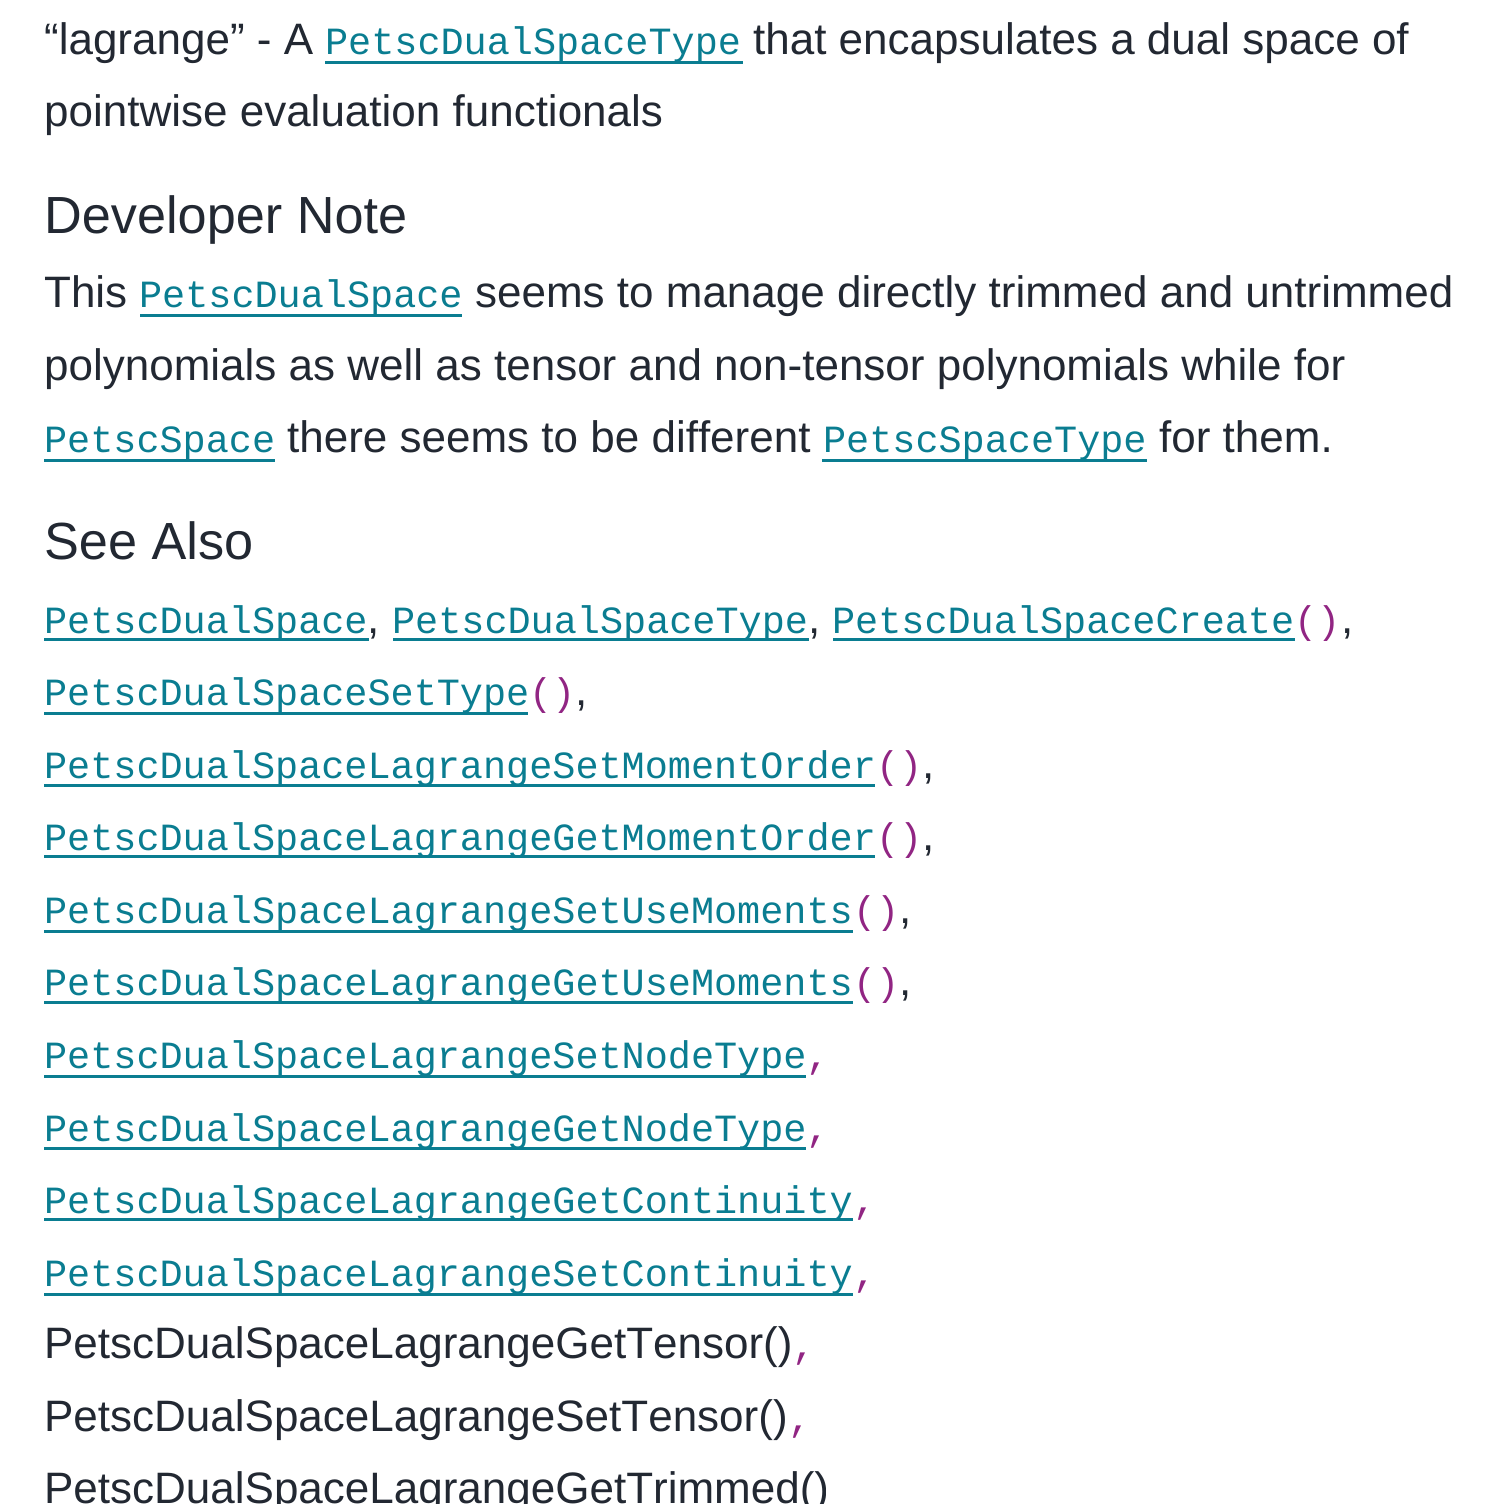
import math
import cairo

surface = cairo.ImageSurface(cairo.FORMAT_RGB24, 1506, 1504)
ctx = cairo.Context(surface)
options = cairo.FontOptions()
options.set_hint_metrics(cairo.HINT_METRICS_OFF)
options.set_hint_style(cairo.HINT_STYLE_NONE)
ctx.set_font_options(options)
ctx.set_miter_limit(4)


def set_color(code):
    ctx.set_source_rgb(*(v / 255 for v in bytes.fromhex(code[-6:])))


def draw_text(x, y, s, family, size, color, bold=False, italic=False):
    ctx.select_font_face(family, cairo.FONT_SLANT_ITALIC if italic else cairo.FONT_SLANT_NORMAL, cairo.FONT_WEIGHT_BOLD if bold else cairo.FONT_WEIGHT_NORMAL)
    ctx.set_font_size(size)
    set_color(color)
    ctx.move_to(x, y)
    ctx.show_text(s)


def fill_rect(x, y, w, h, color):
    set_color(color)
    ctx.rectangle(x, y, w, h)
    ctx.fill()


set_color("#ffffff")
ctx.paint()
draw_text(44, 54, "“lagrange” - A", "Liberation Sans", 44, "#222832")
fill_rect(325, 61, 418, 3, "#0a7d91")
draw_text(325, 54, "PetscDualSpaceType", "Liberation Mono", 38.5, "#0a7d91")
draw_text(753, 54, "that encapsulates a dual space of", "Liberation Sans", 44, "#222832")
draw_text(44, 126, "pointwise evaluation functionals", "Liberation Sans", 44, "#222832")
draw_text(44, 233, "Developer Note", "Liberation Sans", 52.25, "#222832")
draw_text(44, 307, "This", "Liberation Sans", 44, "#222832")
fill_rect(140, 314, 322, 3, "#0a7d91")
draw_text(139, 307, "PetscDualSpace", "Liberation Mono", 38.5, "#0a7d91")
draw_text(475, 307, "seems to manage directly trimmed and untrimmed", "Liberation Sans", 44, "#222832")
draw_text(44, 380, "polynomials as well as tensor and non-tensor polynomials while for", "Liberation Sans", 44, "#222832")
fill_rect(44, 459, 231, 3, "#0a7d91")
draw_text(44, 452, "PetscSpace", "Liberation Mono", 38.5, "#0a7d91")
draw_text(287, 452, "there seems to be different", "Liberation Sans", 44, "#222832")
fill_rect(822, 459, 325, 3, "#0a7d91")
draw_text(823, 452, "PetscSpaceType", "Liberation Mono", 38.5, "#0a7d91")
draw_text(1159, 452, "for them.", "Liberation Sans", 44, "#222832")
draw_text(44, 559, "See Also", "Liberation Sans", 52.25, "#222832")
fill_rect(44, 638, 325, 3, "#0a7d91")
draw_text(44, 633, "PetscDualSpace", "Liberation Mono", 38.5, "#0a7d91")
draw_text(367, 633, ",", "Liberation Sans", 44, "#222832")
fill_rect(393, 638, 416, 3, "#0a7d91")
draw_text(392, 633, "PetscDualSpaceType", "Liberation Mono", 38.5, "#0a7d91")
draw_text(808, 633, ",", "Liberation Sans", 44, "#222832")
fill_rect(833, 638, 462, 3, "#0a7d91")
draw_text(832, 633, "PetscDualSpaceCreate", "Liberation Mono", 38.5, "#0a7d91")
draw_text(1294, 633, "()", "Liberation Mono", 38.5, "#912583")
draw_text(1341, 633, ",", "Liberation Sans", 44, "#222832")
fill_rect(44, 712, 484, 3, "#0a7d91")
draw_text(44, 705, "PetscDualSpaceSetType", "Liberation Mono", 38.5, "#0a7d91")
draw_text(529, 705, "()", "Liberation Mono", 38.5, "#912583")
draw_text(575, 705, ",", "Liberation Sans", 44, "#222832")
fill_rect(44, 784, 831, 3, "#0a7d91")
draw_text(44, 778, "PetscDualSpaceLagrangeSetMomentOrder", "Liberation Mono", 38.5, "#0a7d91")
draw_text(876, 778, "()", "Liberation Mono", 38.5, "#912583")
draw_text(922, 778, ",", "Liberation Sans", 44, "#222832")
fill_rect(44, 855, 831, 3, "#0a7d91")
draw_text(44, 850, "PetscDualSpaceLagrangeGetMomentOrder", "Liberation Mono", 38.5, "#0a7d91")
draw_text(876, 850, "()", "Liberation Mono", 38.5, "#912583")
draw_text(922, 850, ",", "Liberation Sans", 44, "#222832")
fill_rect(44, 930, 809, 3, "#0a7d91")
draw_text(44, 923, "PetscDualSpaceLagrangeSetUseMoments", "Liberation Mono", 38.5, "#0a7d91")
draw_text(853, 923, "()", "Liberation Mono", 38.5, "#912583")
draw_text(899, 923, ",", "Liberation Sans", 44, "#222832")
fill_rect(44, 1001, 809, 3, "#0a7d91")
draw_text(44, 995, "PetscDualSpaceLagrangeGetUseMoments", "Liberation Mono", 38.5, "#0a7d91")
draw_text(853, 995, "()", "Liberation Mono", 38.5, "#912583")
draw_text(899, 995, ",", "Liberation Sans", 44, "#222832")
fill_rect(44, 1075, 762, 3, "#0a7d91")
draw_text(44, 1068, "PetscDualSpaceLagrangeSetNodeType", "Liberation Mono", 38.5, "#0a7d91")
draw_text(806, 1068, ",", "Liberation Mono", 38.5, "#912583")
fill_rect(44, 1147, 762, 3, "#0a7d91")
draw_text(44, 1141, "PetscDualSpaceLagrangeGetNodeType", "Liberation Mono", 38.5, "#0a7d91")
draw_text(806, 1141, ",", "Liberation Mono", 38.5, "#912583")
fill_rect(44, 1218, 809, 3, "#0a7d91")
draw_text(44, 1213, "PetscDualSpaceLagrangeGetContinuity", "Liberation Mono", 38.5, "#0a7d91")
draw_text(853, 1213, ",", "Liberation Mono", 38.5, "#912583")
fill_rect(44, 1293, 809, 3, "#0a7d91")
draw_text(44, 1286, "PetscDualSpaceLagrangeSetContinuity", "Liberation Mono", 38.5, "#0a7d91")
draw_text(853, 1286, ",", "Liberation Mono", 38.5, "#912583")
draw_text(44, 1358, "PetscDualSpaceLagrangeGetTensor()", "Liberation Sans", 44, "#222832")
draw_text(792, 1358, ",", "Liberation Mono", 38.5, "#912583")
draw_text(44, 1431, "PetscDualSpaceLagrangeSetTensor()", "Liberation Sans", 44, "#222832")
draw_text(788, 1431, ",", "Liberation Mono", 38.5, "#912583")
draw_text(44, 1503, "PetscDualSpaceLagrangeGetTrimmed()", "Liberation Sans", 44, "#222832")
surface.write_to_png("output.png")
